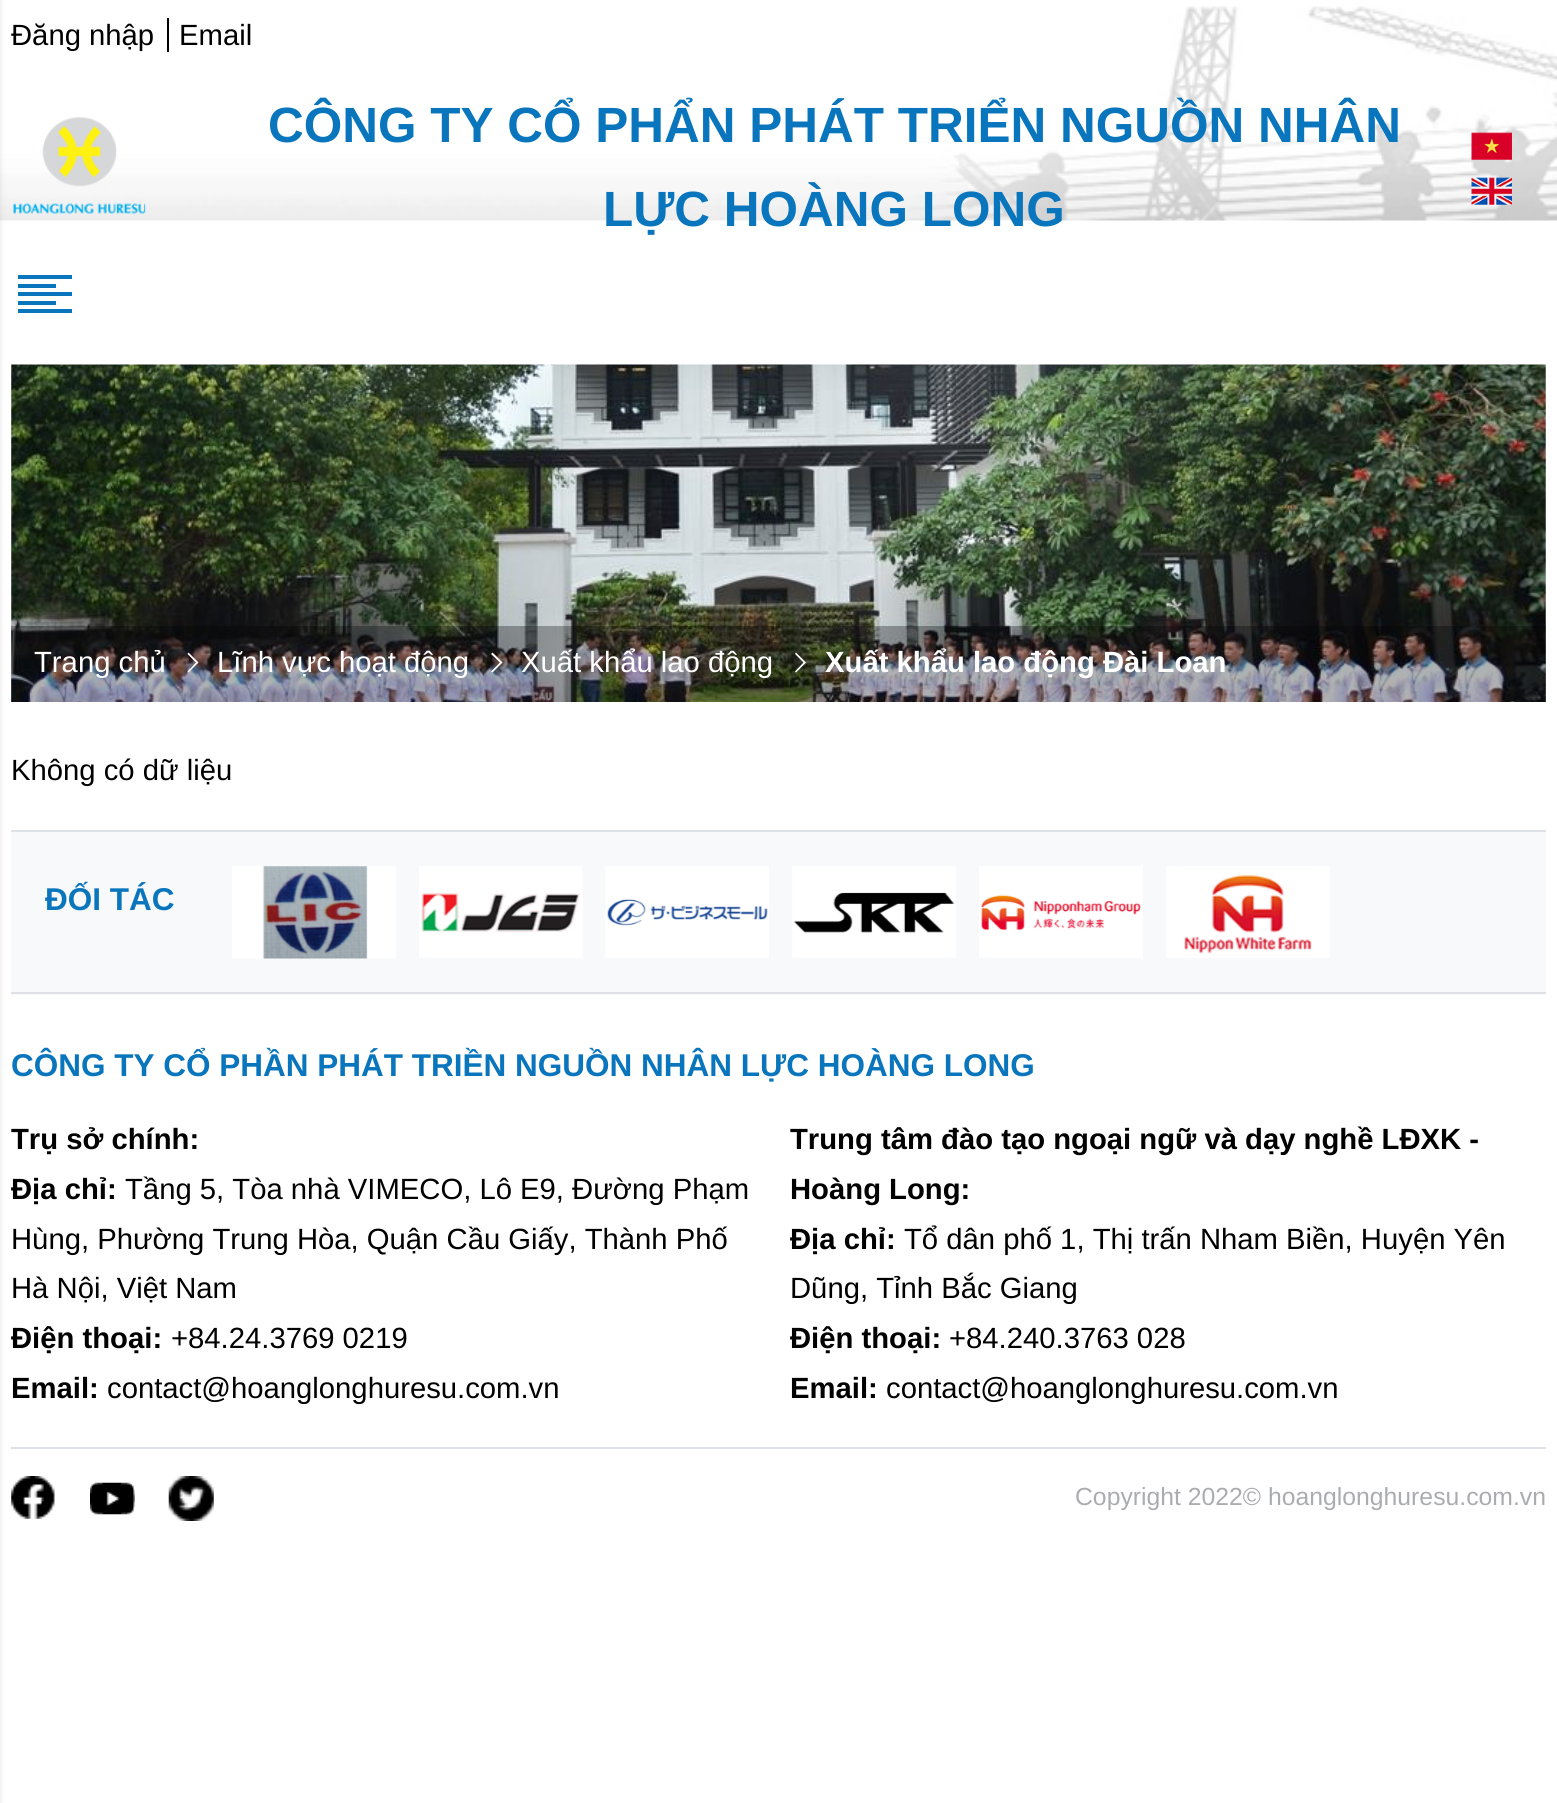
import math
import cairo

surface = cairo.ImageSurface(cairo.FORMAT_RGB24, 1557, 1803)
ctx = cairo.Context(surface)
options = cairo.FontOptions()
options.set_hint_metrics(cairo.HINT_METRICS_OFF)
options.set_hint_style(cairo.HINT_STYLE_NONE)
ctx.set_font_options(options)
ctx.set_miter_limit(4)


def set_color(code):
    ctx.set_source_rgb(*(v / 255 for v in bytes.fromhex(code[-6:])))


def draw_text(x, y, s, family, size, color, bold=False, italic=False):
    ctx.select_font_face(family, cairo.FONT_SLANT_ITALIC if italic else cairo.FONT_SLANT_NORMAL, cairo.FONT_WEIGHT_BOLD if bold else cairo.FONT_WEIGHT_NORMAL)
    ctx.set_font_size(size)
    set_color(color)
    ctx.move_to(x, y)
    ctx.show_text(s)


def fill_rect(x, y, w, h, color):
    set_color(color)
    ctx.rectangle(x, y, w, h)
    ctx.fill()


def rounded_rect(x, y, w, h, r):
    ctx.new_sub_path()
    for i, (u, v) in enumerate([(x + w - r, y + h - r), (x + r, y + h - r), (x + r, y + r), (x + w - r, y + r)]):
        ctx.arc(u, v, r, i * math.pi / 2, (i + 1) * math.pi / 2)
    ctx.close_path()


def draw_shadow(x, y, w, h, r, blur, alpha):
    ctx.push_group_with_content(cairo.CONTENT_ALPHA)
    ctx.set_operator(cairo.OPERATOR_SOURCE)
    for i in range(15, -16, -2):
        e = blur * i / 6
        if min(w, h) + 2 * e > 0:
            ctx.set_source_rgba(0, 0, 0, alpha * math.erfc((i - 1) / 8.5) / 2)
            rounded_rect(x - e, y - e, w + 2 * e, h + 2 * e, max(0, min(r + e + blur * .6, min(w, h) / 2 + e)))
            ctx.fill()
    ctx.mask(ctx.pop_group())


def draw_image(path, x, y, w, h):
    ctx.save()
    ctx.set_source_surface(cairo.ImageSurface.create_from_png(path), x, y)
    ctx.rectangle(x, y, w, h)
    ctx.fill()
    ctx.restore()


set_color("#ffffff")
ctx.paint()
draw_image("assets/img1.png", 0, 6, 1557, 215)
set_color("#000000")
draw_shadow(-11, 0, 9, 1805, 0, 3.5, 0.2)
set_color("#0975bd")
ctx.new_path()
ctx.move_to(18, 275)
ctx.line_to(18, 279)
ctx.line_to(72, 279)
ctx.line_to(72, 275)
ctx.close_path()
ctx.move_to(18, 284)
ctx.line_to(18, 288)
ctx.line_to(56, 288)
ctx.line_to(56, 284)
ctx.close_path()
ctx.move_to(18, 292)
ctx.line_to(18, 296)
ctx.line_to(72, 296)
ctx.line_to(72, 292)
ctx.close_path()
ctx.move_to(18, 301)
ctx.line_to(18, 305)
ctx.line_to(56, 305)
ctx.line_to(56, 301)
ctx.close_path()
ctx.move_to(18, 309)
ctx.line_to(18, 313)
ctx.line_to(72, 313)
ctx.line_to(72, 309)
ctx.close_path()
ctx.fill()
fill_rect(167, 18, 2, 34, "#000000")
draw_text(11, 45, "Đăng nhập", "Liberation Sans", 29.25, "#000000")
draw_text(179, 45, "Email", "Liberation Sans", 29.25, "#000000")
draw_image("assets/img2.png", 13, 117, 133, 97)
draw_text(268, 142, "CÔNG TY CỔ PHẨN PHÁT TRIỂN NGUỒN NHÂN", "Liberation Sans", 49.5, "#0975bd", bold=True)
draw_text(603, 226, "LỰC HOÀNG LONG", "Liberation Sans", 49.5, "#0975bd", bold=True)
draw_image("assets/img3.png", 1471, 132, 41, 28)
draw_image("assets/img4.png", 1471, 177, 41, 28)
draw_image("assets/img5.png", 11, 364, 1535, 338)
ctx.set_source_rgba(0, 0, 0, 0.3)
ctx.rectangle(11, 626, 1535, 76)
ctx.fill()
draw_text(34, 672, "Trang chủ", "Liberation Sans", 29.25, "#ffffff")
ctx.new_path()
ctx.move_to(188.5, 652.5)
ctx.line_to(187.5, 654)
ctx.line_to(196, 662.5)
ctx.line_to(187.5, 671.5)
ctx.line_to(188.5, 672.5)
ctx.line_to(198.5, 662.5)
ctx.close_path()
ctx.fill()
draw_text(217, 672, "Lĩnh vực hoạt động", "Liberation Sans", 29.25, "#ffffff")
ctx.new_path()
ctx.move_to(492.5, 652.5)
ctx.line_to(491, 654)
ctx.line_to(500, 662.5)
ctx.line_to(491, 671.5)
ctx.line_to(492.5, 672.5)
ctx.line_to(502.5, 662.5)
ctx.close_path()
ctx.fill()
draw_text(521, 672, "Xuất khẩu lao động", "Liberation Sans", 29.25, "#ffffff")
ctx.new_path()
ctx.move_to(796, 652.5)
ctx.line_to(795, 654)
ctx.line_to(803.5, 662.5)
ctx.line_to(795, 671.5)
ctx.line_to(796, 672.5)
ctx.line_to(806, 662.5)
ctx.close_path()
ctx.fill()
draw_text(825, 672, "Xuất khẩu lao động Đài Loan", "Liberation Sans", 29.25, "#ffffff", bold=True)
draw_text(11, 780, "Không có dữ liệu", "Liberation Sans", 29.25, "#000000")
fill_rect(11, 832, 1535, 163, "#f8f9fa")
fill_rect(11, 830, 1535, 2, "#dee2e6")
fill_rect(11, 992, 1535, 2, "#dee2e6")
draw_text(45, 910, "ĐỐI TÁC", "Liberation Sans", 31.5, "#0975bd", bold=True)
draw_image("assets/img6.png", 232, 866, 164, 93)
draw_image("assets/img7.png", 419, 866, 164, 92)
draw_image("assets/img8.png", 605, 866, 164, 92)
draw_image("assets/img9.png", 792, 866, 164, 92)
draw_image("assets/img10.png", 979, 866, 164, 92)
draw_image("assets/img11.png", 1166, 866, 164, 92)
draw_text(11, 1076, "CÔNG TY CỔ PHẦN PHÁT TRIỀN NGUỒN NHÂN LỰC HOÀNG LONG", "Liberation Sans", 31.5, "#0975bd", bold=True)
draw_text(11, 1149, "Trụ sở chính:", "Liberation Sans", 29.25, "#000000", bold=True)
draw_text(11, 1199, "Địa chỉ:", "Liberation Sans", 29.25, "#000000", bold=True)
draw_text(125, 1199, "Tầng 5, Tòa nhà VIMECO, Lô E9, Đường Phạm", "Liberation Sans", 29.25, "#000000")
draw_text(11, 1249, "Hùng, Phường Trung Hòa, Quận Cầu Giấy, Thành Phố", "Liberation Sans", 29.25, "#000000")
draw_text(11, 1298, "Hà Nội, Việt Nam", "Liberation Sans", 29.25, "#000000")
draw_text(11, 1348, "Điện thoại:", "Liberation Sans", 29.25, "#000000", bold=True)
draw_text(171, 1348, "+84.24.3769 0219", "Liberation Sans", 29.25, "#000000")
draw_text(11, 1398, "Email:", "Liberation Sans", 29.25, "#000000", bold=True)
draw_text(107, 1398, "contact@hoanglonghuresu.com.vn", "Liberation Sans", 29.25, "#000000")
draw_text(790, 1149, "Trung tâm đào tạo ngoại ngữ và dạy nghề LĐXK -", "Liberation Sans", 29.25, "#000000", bold=True)
draw_text(790, 1199, "Hoàng Long:", "Liberation Sans", 29.25, "#000000", bold=True)
draw_text(790, 1249, "Địa chỉ:", "Liberation Sans", 29.25, "#000000", bold=True)
draw_text(904, 1249, "Tổ dân phố 1, Thị trấn Nham Biền, Huyện Yên", "Liberation Sans", 29.25, "#000000")
draw_text(790, 1298, "Dũng, Tỉnh Bắc Giang", "Liberation Sans", 29.25, "#000000")
draw_text(790, 1348, "Điện thoại:", "Liberation Sans", 29.25, "#000000", bold=True)
draw_text(949, 1348, "+84.240.3763 028", "Liberation Sans", 29.25, "#000000")
draw_text(790, 1398, "Email:", "Liberation Sans", 29.25, "#000000", bold=True)
draw_text(886, 1398, "contact@hoanglonghuresu.com.vn", "Liberation Sans", 29.25, "#000000")
fill_rect(11, 1447, 1535, 2, "#dee2e6")
draw_image("assets/img12.png", 11, 1476, 44, 43)
draw_image("assets/img13.png", 90, 1482, 45, 33)
draw_image("assets/img14.png", 168, 1476, 46, 45)
draw_text(1075, 1505, "Copyright 2022© hoanglonghuresu.com.vn", "Liberation Sans", 24.75, "#abacaf")
surface.write_to_png("output.png")
